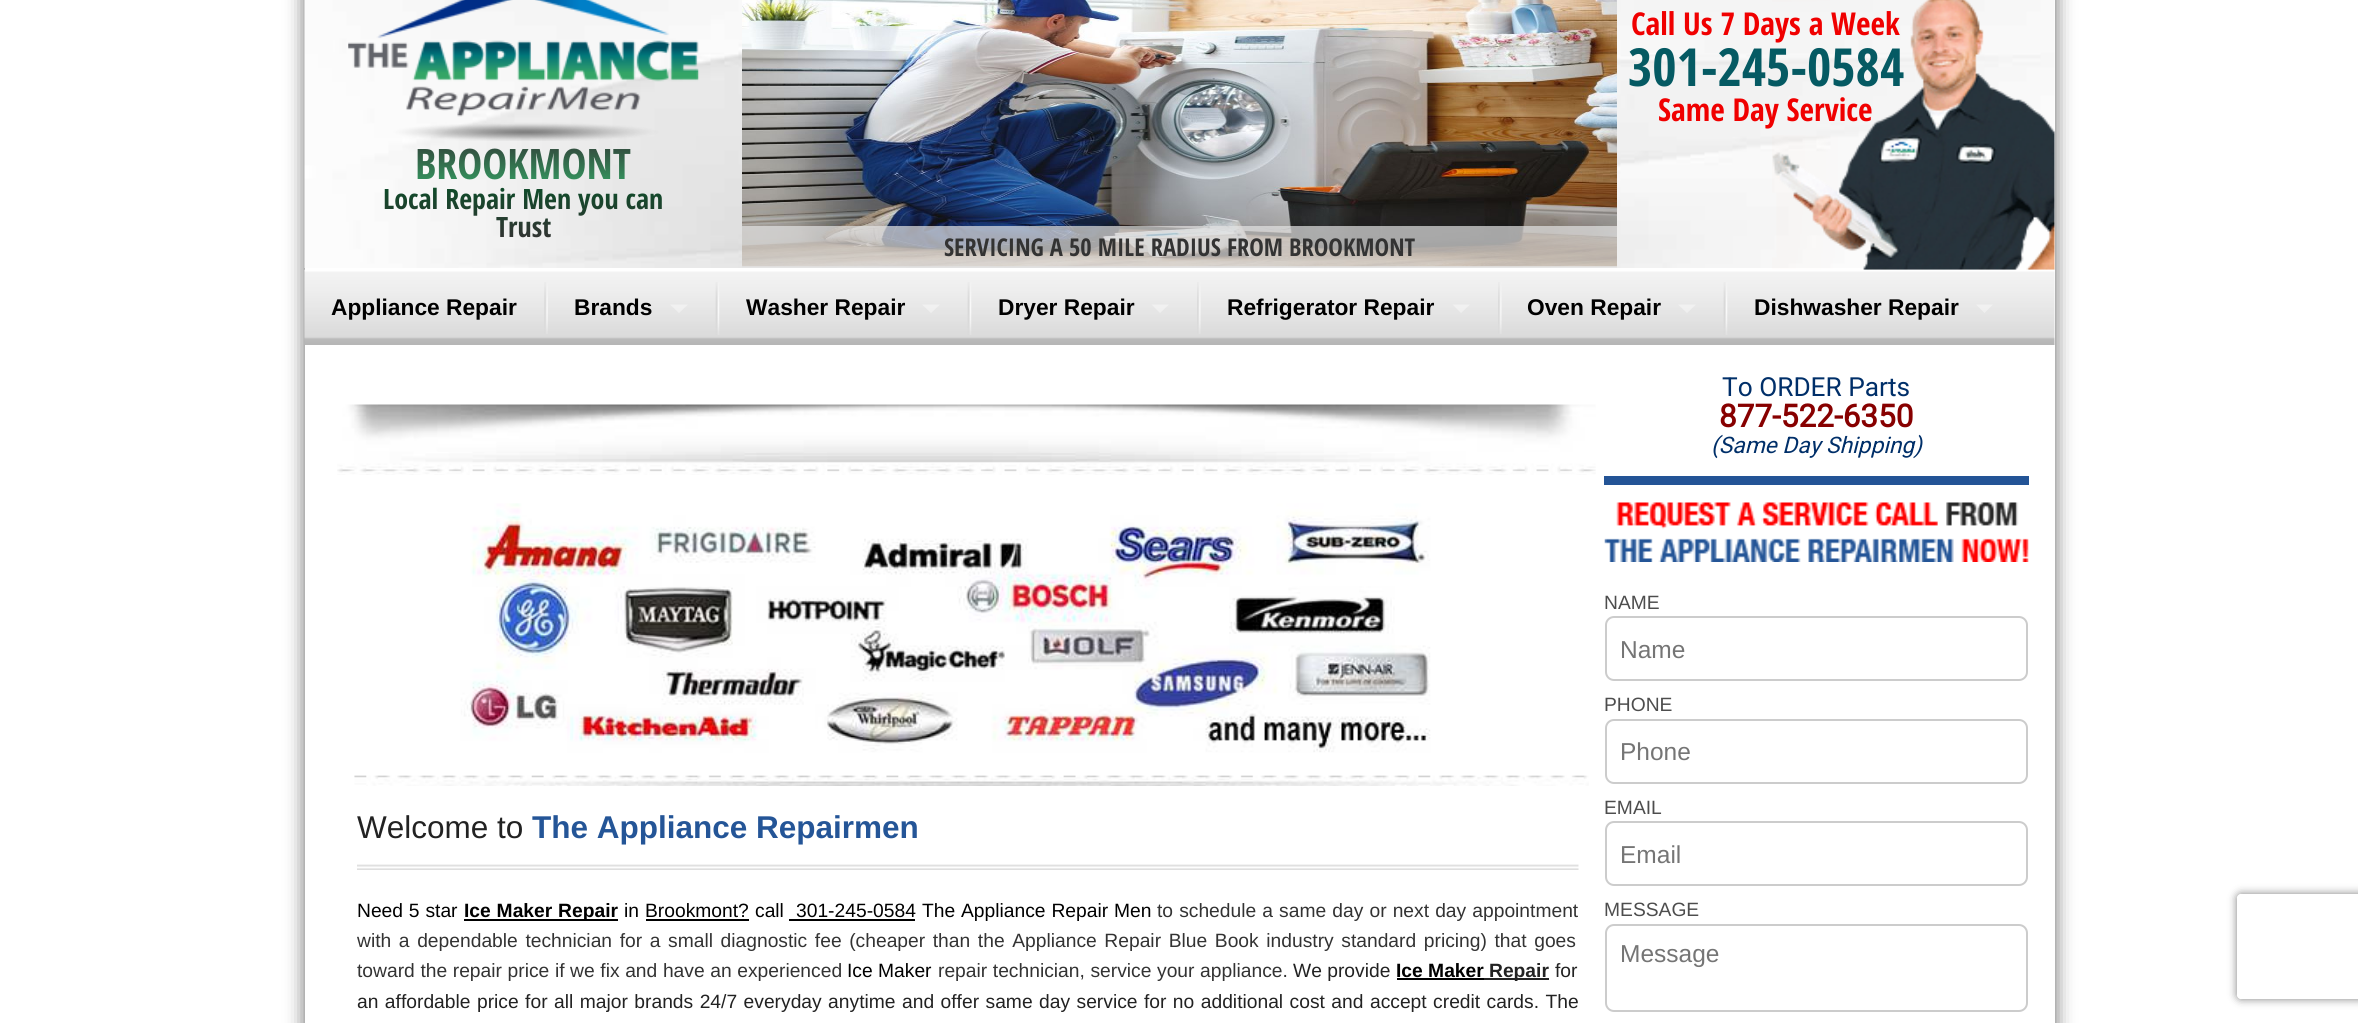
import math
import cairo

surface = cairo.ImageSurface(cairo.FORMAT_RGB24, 2358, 1023)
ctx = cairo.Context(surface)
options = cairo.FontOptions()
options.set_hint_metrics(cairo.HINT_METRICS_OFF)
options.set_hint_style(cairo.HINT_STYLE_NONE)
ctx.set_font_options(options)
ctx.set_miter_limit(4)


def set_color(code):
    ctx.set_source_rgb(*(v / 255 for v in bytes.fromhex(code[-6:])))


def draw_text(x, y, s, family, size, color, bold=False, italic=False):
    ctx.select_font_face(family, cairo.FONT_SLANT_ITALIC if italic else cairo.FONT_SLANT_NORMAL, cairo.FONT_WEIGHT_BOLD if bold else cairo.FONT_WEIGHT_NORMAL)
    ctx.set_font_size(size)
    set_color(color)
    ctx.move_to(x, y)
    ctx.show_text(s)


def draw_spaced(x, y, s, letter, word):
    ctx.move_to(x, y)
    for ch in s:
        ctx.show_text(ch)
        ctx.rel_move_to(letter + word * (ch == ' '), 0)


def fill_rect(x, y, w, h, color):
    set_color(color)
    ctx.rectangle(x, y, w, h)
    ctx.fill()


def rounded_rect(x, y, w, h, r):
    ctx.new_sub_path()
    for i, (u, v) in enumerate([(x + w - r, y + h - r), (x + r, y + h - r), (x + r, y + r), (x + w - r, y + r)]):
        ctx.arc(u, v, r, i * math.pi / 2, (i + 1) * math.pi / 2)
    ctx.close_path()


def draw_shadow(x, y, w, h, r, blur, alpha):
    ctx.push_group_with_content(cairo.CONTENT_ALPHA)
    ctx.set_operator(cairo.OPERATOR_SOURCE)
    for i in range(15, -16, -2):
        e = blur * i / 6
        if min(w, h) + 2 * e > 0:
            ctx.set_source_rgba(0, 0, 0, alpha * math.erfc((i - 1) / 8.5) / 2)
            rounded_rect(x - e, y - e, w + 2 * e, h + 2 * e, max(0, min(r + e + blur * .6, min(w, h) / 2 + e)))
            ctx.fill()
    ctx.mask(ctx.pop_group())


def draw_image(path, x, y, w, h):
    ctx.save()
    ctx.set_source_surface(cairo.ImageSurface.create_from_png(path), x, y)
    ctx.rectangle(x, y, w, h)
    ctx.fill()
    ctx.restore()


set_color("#ffffff")
ctx.paint()
set_color("#323232")
draw_shadow(305, -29, 1750, 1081, 0, 9.5, 0.75)
fill_rect(305, 0, 1750, 1023, "#ffffff")
draw_image("assets/img1.png", 304, 0, 1751, 268)
draw_image("assets/img2.png", 1772, 0, 283, 270)
draw_text(1631, 35, "Call Us 7 Days a Week", "Open Sans Condensed", 31.5, "#f00000", bold=True)
draw_text(1628, 86, "301-245-0584", "Open Sans Condensed", 52.5, "#055a63", bold=True)
draw_text(1658, 121, "Same Day Service", "Open Sans Condensed", 31.5, "#f00000", bold=True)
draw_image("assets/img3.png", 348, 0, 351, 141)
ctx.set_font_size(42)
gradient = cairo.LinearGradient(523, 134, 523, 191)
gradient.add_color_stop_rgba(0, 0.2, 0.2, 0.2, 1)
gradient.add_color_stop_rgba(1, 0.204, 0.647, 0.4, 1)
ctx.set_source(gradient)
ctx.move_to(415, 179)
ctx.show_text("BROOKMONT")
ctx.set_font_size(28)
gradient = cairo.LinearGradient(523, 184, 523, 240)
gradient.add_color_stop_rgba(0, 0.051, 0.302, 0.161, 1)
gradient.add_color_stop_rgba(1, 0.2, 0.2, 0.2, 1)
ctx.set_source(gradient)
ctx.move_to(383, 209)
ctx.show_text("Local Repair Men you can")
ctx.move_to(496, 237)
ctx.show_text("Trust")
draw_image("assets/img4.png", 742, 0, 875, 267)
ctx.set_source_rgba(0.89, 0.89, 0.89, 0.7)
ctx.rectangle(742, 226, 875, 42)
ctx.fill()
draw_text(944, 256, "SERVICING A 50 MILE RADIUS FROM BROOKMONT", "Open Sans Condensed", 24.5, "#333333", bold=True)
draw_image("assets/img5.png", 304, 269, 1751, 76)
draw_text(331, 315, "Appliance Repair", "Liberation Sans", 22.75, "#000000", bold=True)
draw_image("assets/img6.png", 544, 282, 4, 52)
draw_text(574, 315, "Brands", "Liberation Sans", 22.75, "#000000", bold=True)
ctx.set_source_rgba(1, 1, 1, 0.4)
ctx.new_path()
ctx.move_to(670, 304.5)
ctx.line_to(688, 304.5)
ctx.line_to(679, 313)
ctx.close_path()
ctx.fill()
draw_image("assets/img7.png", 715, 282, 5, 53)
draw_text(746, 315, "Washer Repair", "Liberation Sans", 22.75, "#000000", bold=True)
ctx.set_source_rgba(1, 1, 1, 0.4)
ctx.new_path()
ctx.move_to(922, 304.5)
ctx.line_to(940, 304.5)
ctx.line_to(931, 313)
ctx.close_path()
ctx.fill()
draw_image("assets/img7.png", 967, 282, 5, 53)
draw_text(998, 315, "Dryer Repair", "Liberation Sans", 22.75, "#000000", bold=True)
ctx.set_source_rgba(1, 1, 1, 0.4)
ctx.new_path()
ctx.move_to(1151.5, 304.5)
ctx.line_to(1169, 304.5)
ctx.line_to(1160, 313)
ctx.close_path()
ctx.fill()
draw_image("assets/img8.png", 1197, 282, 4, 52)
draw_text(1227, 315, "Refrigerator Repair", "Liberation Sans", 22.75, "#000000", bold=True)
ctx.set_source_rgba(1, 1, 1, 0.4)
ctx.new_path()
ctx.move_to(1452.5, 304.5)
ctx.line_to(1470, 304.5)
ctx.line_to(1461, 313)
ctx.close_path()
ctx.fill()
draw_image("assets/img8.png", 1498, 282, 4, 52)
draw_text(1527, 315, "Oven Repair", "Liberation Sans", 22.75, "#000000", bold=True)
ctx.set_source_rgba(1, 1, 1, 0.4)
ctx.new_path()
ctx.move_to(1678, 304.5)
ctx.line_to(1696, 304.5)
ctx.line_to(1687, 313)
ctx.close_path()
ctx.fill()
draw_image("assets/img7.png", 1723, 282, 5, 53)
draw_text(1754, 315, "Dishwasher Repair", "Liberation Sans", 22.75, "#000000", bold=True)
ctx.set_source_rgba(1, 1, 1, 0.4)
ctx.new_path()
ctx.move_to(1976, 304.5)
ctx.line_to(1993, 304.5)
ctx.line_to(1984.5, 313)
ctx.close_path()
ctx.fill()
draw_image("assets/img9.png", 337, 404, 1259, 71)
draw_image("assets/img10.png", 354, 503, 1235, 283)
draw_image("assets/img11.png", 357, 864, 1222, 6)
draw_text(357, 838, "Welcome to", "Liberation Sans", 31.5, "#222222")
draw_text(532, 838, "The Appliance Repairmen", "Liberation Sans", 31.5, "#245597", bold=True)
ctx.select_font_face("Liberation Sans")
ctx.set_font_size(19.25)
set_color("#000000")
draw_spaced(357, 917, "Need 5 star", 0, 0.5)
fill_rect(464, 919, 154, 2, "#000000")
ctx.select_font_face("Liberation Sans", cairo.FONT_SLANT_NORMAL, cairo.FONT_WEIGHT_BOLD)
draw_spaced(464, 917, "Ice Maker Repair", 0, 0.5)
draw_text(624, 917, "in", "Liberation Sans", 19.25, "#000000")
draw_text(645, 917, "Brookmont?", "Liberation Sans", 19.25, "#000000")
fill_rect(646, 919, 103, 2, "#000000")
draw_text(755, 917, "call", "Liberation Sans", 19.25, "#000000")
draw_text(796, 917, "301-245-0584", "Liberation Sans", 19.25, "#000000")
fill_rect(789, 919, 126, 2, "#000000")
draw_spaced(922, 917, "The Appliance Repair Men", 0, 0.5)
set_color("#333333")
draw_spaced(1157, 917, "to schedule a same day or next day appointment", 0, 0.75)
draw_spaced(357, 947, "with a dependable technician for a small diagnostic fee (cheaper than the Appliance Repair Blue Book industry standard pricing) that goes", 0, 2.25)
draw_spaced(357, 977, "toward the repair price if we fix and have an experienced", 0, 0.25)
draw_text(847, 977, "Ice Maker", "Liberation Sans", 19.25, "#000000")
set_color("#333333")
draw_spaced(938, 977, "repair technician, service your appliance.", 0, 0.25)
draw_text(1293, 977, "We provide", "Liberation Sans", 19.25, "#222222")
draw_text(1396, 977, "Ice Maker", "Liberation Sans", 19.25, "#000000", bold=True)
fill_rect(1397, 978, 87, 2, "#000000")
fill_rect(1484, 978, 65, 2, "#222222")
draw_text(1489, 977, "Repair", "Liberation Sans", 19.25, "#222222", bold=True)
fill_rect(1549, 959, 1, 10, "#ffffff")
draw_text(1555, 977, "for", "Liberation Sans", 19.25, "#222222")
draw_spaced(357, 1008, "an affordable price for all major brands 24/7 everyday anytime and offer same day service for no additional cost and accept credit cards. The", 0, 1.1)
draw_text(1722, 396, "To ORDER Parts", "Roboto", 26.25, "#002f69")
draw_text(1719, 427, "877-522-6350", "Roboto", 31.5, "#870000", bold=True)
draw_text(1711, 453, "(Same Day Shipping)", "Roboto", 22.75, "#002f69", italic=True)
fill_rect(1604, 476, 425, 9, "#235496")
draw_image("assets/img12.png", 1604, 502, 425, 60)
draw_text(1604, 609, "NAME", "Liberation Sans", 19.25, "#4d4d4d")
rounded_rect(1606, 617, 421, 63, 8)
set_color("#cccccc")
ctx.stroke()
draw_text(1620, 658, "Name", "Liberation Sans", 24.5, "#757575")
draw_text(1604, 711, "PHONE", "Liberation Sans", 19.25, "#4d4d4d")
rounded_rect(1606, 720, 421, 63, 8)
set_color("#cccccc")
ctx.stroke()
draw_text(1620, 760, "Phone", "Liberation Sans", 24.5, "#757575")
draw_text(1604, 814, "EMAIL", "Liberation Sans", 19.25, "#4d4d4d")
rounded_rect(1606, 822, 421, 63, 8)
set_color("#cccccc")
ctx.stroke()
draw_text(1620, 863, "Email", "Liberation Sans", 24.5, "#757575")
draw_text(1604, 916, "MESSAGE", "Liberation Sans", 19.25, "#4d4d4d")
rounded_rect(1606, 925, 421, 86, 8)
set_color("#cccccc")
ctx.stroke()
draw_text(1620, 962, "Message", "Liberation Sans", 24.5, "#757575")
ctx.save()
ctx.set_fill_rule(cairo.FILL_RULE_EVEN_ODD)
ctx.new_path()
ctx.move_to(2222, 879)
ctx.line_to(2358, 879)
ctx.line_to(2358, 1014)
ctx.line_to(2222, 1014)
ctx.close_path()
ctx.move_to(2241, 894)
ctx.line_to(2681, 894)
ctx.curve_to(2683, 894, 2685, 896, 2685, 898)
ctx.line_to(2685, 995)
ctx.curve_to(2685, 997, 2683, 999, 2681, 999)
ctx.line_to(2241, 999)
ctx.curve_to(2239, 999, 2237, 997, 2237, 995)
ctx.line_to(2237, 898)
ctx.curve_to(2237, 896, 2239, 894, 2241, 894)
ctx.close_path()
ctx.clip()
set_color("#808080")
draw_shadow(2237, 894, 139, 105, 4, 4.5, 1)
ctx.restore()
surface.write_to_png("output.png")
